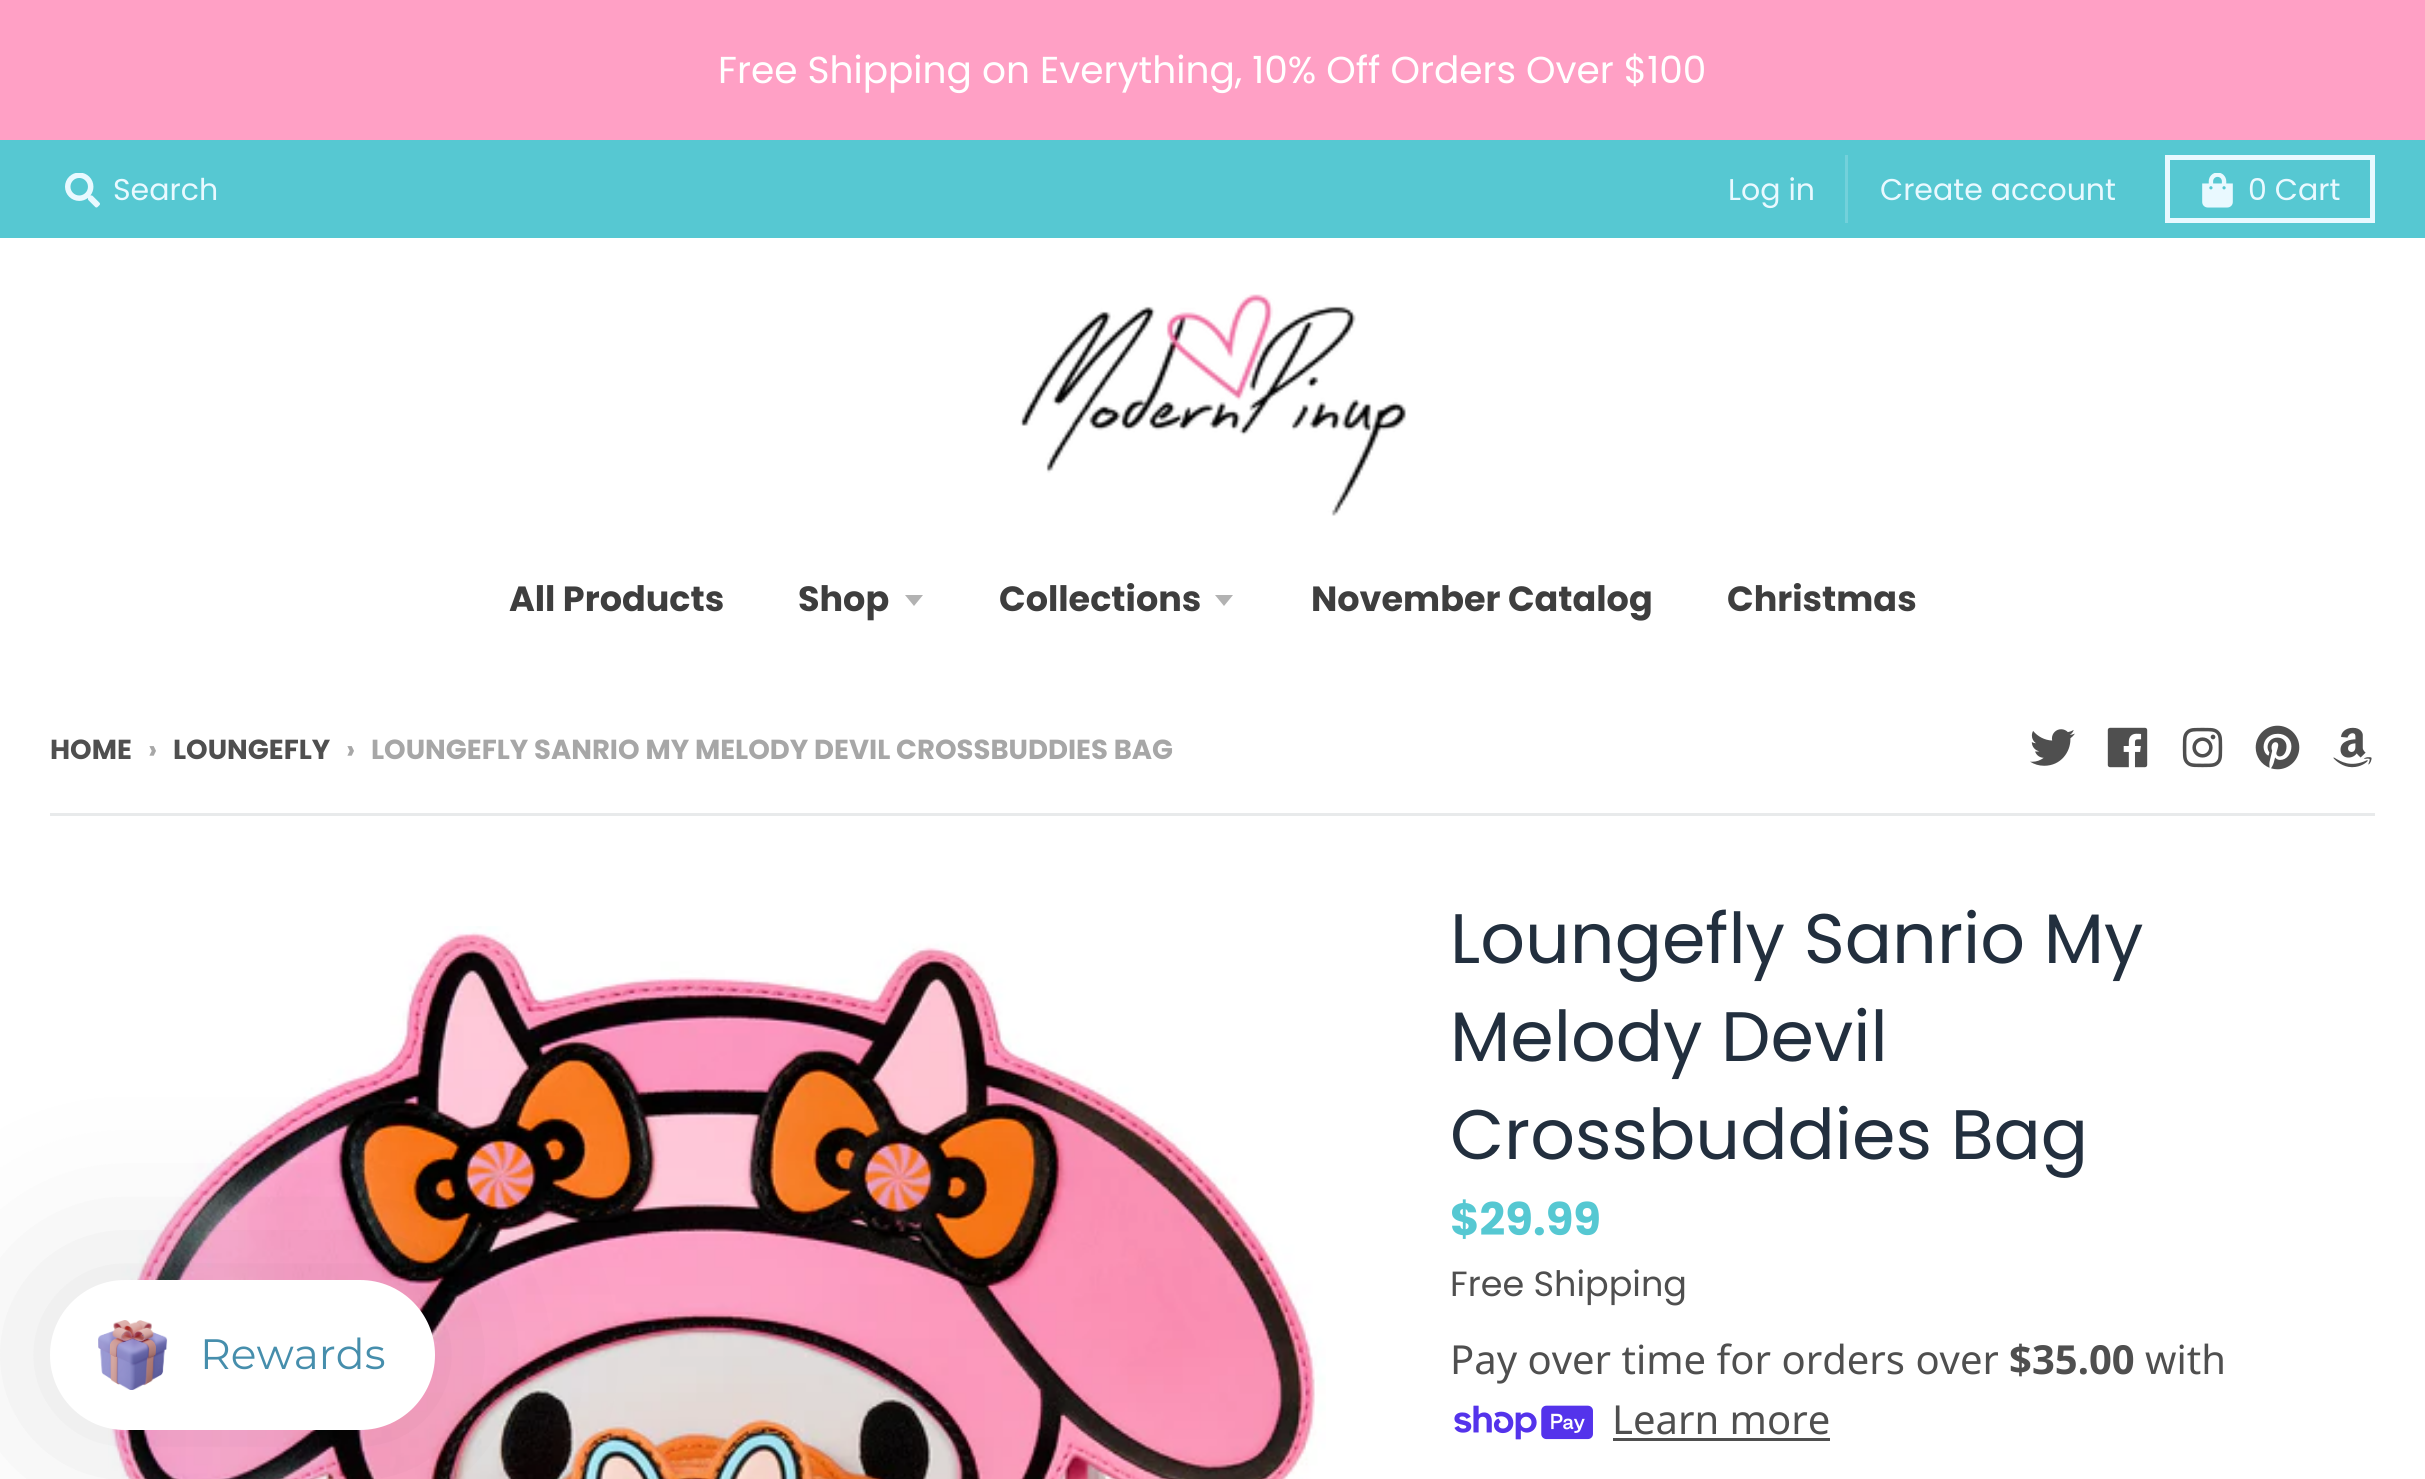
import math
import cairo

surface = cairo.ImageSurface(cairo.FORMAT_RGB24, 2425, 1479)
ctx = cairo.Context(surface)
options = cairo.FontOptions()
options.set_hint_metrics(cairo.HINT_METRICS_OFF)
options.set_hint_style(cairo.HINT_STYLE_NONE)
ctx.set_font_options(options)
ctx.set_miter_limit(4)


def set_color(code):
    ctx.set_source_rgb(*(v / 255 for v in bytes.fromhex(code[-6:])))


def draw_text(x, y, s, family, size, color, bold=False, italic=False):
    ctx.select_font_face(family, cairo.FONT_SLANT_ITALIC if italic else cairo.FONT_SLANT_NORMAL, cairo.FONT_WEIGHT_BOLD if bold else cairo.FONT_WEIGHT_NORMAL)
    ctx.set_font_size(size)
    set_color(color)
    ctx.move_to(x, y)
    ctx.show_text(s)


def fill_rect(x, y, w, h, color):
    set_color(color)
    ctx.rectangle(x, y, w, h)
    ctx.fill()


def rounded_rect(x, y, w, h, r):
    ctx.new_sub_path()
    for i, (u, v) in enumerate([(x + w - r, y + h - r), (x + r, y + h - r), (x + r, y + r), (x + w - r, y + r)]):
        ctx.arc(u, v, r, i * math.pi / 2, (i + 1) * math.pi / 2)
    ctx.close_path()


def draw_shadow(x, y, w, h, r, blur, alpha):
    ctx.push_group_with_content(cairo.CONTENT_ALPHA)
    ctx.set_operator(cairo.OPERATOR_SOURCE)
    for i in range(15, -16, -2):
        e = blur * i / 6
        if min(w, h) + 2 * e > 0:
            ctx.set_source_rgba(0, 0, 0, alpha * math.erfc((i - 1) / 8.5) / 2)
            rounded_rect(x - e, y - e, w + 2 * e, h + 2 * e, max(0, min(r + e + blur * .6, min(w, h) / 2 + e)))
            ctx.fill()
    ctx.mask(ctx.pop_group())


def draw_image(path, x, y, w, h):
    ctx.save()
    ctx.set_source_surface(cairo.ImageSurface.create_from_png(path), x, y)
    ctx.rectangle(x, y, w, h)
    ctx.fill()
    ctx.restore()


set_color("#ffffff")
ctx.paint()
fill_rect(0, 0, 2425, 140, "#ffa0c5")
draw_text(718, 83, "Free Shipping on Everything, 10% Off Orders Over $100", "Poppins", 37.5, "#ffffff")
fill_rect(0, 140, 2425, 98, "#56c8d2")
draw_image("assets/img1.png", 65, 173, 35, 35)
draw_text(113, 200, "Search", "Poppins", 30, "#e9f9ff")
fill_rect(1845, 155, 3, 68, "#73d1db")
draw_text(1728, 200, "Log in", "Poppins", 30, "#e9f9ff")
draw_text(1880, 200, "Create account", "Poppins", 30, "#e9f9ff")
ctx.rectangle(2167.5, 157.5, 205, 63)
ctx.set_line_width(5)
ctx.stroke()
draw_image("assets/img2.png", 2202, 173, 31, 35)
draw_text(2248, 200, "0 Cart", "Poppins", 30, "#e9f9ff")
draw_image("assets/img3.png", 1020, 294, 386, 222)
draw_text(509, 611, "All Products", "Poppins", 35, "#3e3e3e", bold=True)
draw_text(798, 611, "Shop", "Poppins", 35, "#3e3e3e", bold=True)
set_color("#b2b2b2")
ctx.new_path()
ctx.move_to(905, 595)
ctx.line_to(914, 606)
ctx.line_to(923, 595)
ctx.close_path()
ctx.fill()
draw_text(999, 611, "Collections", "Poppins", 35, "#3e3e3e", bold=True)
set_color("#b2b2b2")
ctx.new_path()
ctx.move_to(1215, 595)
ctx.line_to(1224, 606)
ctx.line_to(1233, 595)
ctx.close_path()
ctx.fill()
draw_text(1311, 611, "November Catalog", "Poppins", 35, "#3e3e3e", bold=True)
draw_text(1727, 611, "Christmas", "Poppins", 35, "#3e3e3e", bold=True)
draw_text(50, 759, "HOME", "Poppins", 27.5, "#4f4f4f", bold=True)
draw_text(148, 759, "›", "Poppins", 27.5, "#a7a7a7", bold=True)
draw_text(173, 759, "LOUNGEFLY", "Poppins", 27.5, "#4f4f4f", bold=True)
draw_text(346, 759, "›", "Poppins", 27.5, "#a7a7a7", bold=True)
draw_text(371, 759, "LOUNGEFLY SANRIO MY MELODY DEVIL CROSSBUDDIES BAG", "Poppins", 27.5, "#a7a7a7", bold=True)
draw_image("assets/img4.png", 2030, 729, 45, 37)
draw_image("assets/img5.png", 2107, 727, 41, 41)
draw_image("assets/img6.png", 2182, 727, 41, 41)
draw_image("assets/img7.png", 2255, 725, 45, 45)
draw_image("assets/img8.png", 2333, 727, 39, 41)
fill_rect(50, 813, 2325, 3, "#e8eaeb")
draw_image("assets/img9.png", 108, 926, 1218, 553)
draw_text(1450, 963, "Loungefly Sanrio My", "Poppins", 70, "#222f3e")
draw_text(1450, 1061, "Melody Devil", "Poppins", 70, "#222f3e")
draw_text(1450, 1159, "Crossbuddies Bag", "Poppins", 70, "#222f3e")
draw_text(1450, 1235, "$29.99", "Poppins", 45, "#56c8d2", bold=True)
draw_text(1450, 1296, "Free Shipping", "Poppins", 35, "#4f4f4f")
draw_text(1450, 1374, "Pay over time for orders over", "Noto Sans", 40, "#4f4f4f")
draw_text(2009, 1374, "$35.00", "Noto Sans", 40, "#4f4f4f", bold=True)
draw_text(2145, 1374, "with", "Noto Sans", 40, "#4f4f4f")
draw_image("assets/img10.png", 1454, 1405, 139, 35)
draw_text(1612, 1434, "Learn more", "Noto Sans", 40, "#4f4f4f")
fill_rect(1613, 1438, 217, 3, "#4f4f4f")
set_color("#000000")
draw_shadow(50, 1280, 385, 150, 75, 100, 0.12)
set_color("#ffffff")
rounded_rect(50, 1280, 385, 150, 75)
ctx.fill()
draw_image("assets/img11.png", 98, 1320, 70, 70)
draw_text(200, 1369, "Rewards", "Montserrat", 42.5, "#468eac")
surface.write_to_png("output.png")
